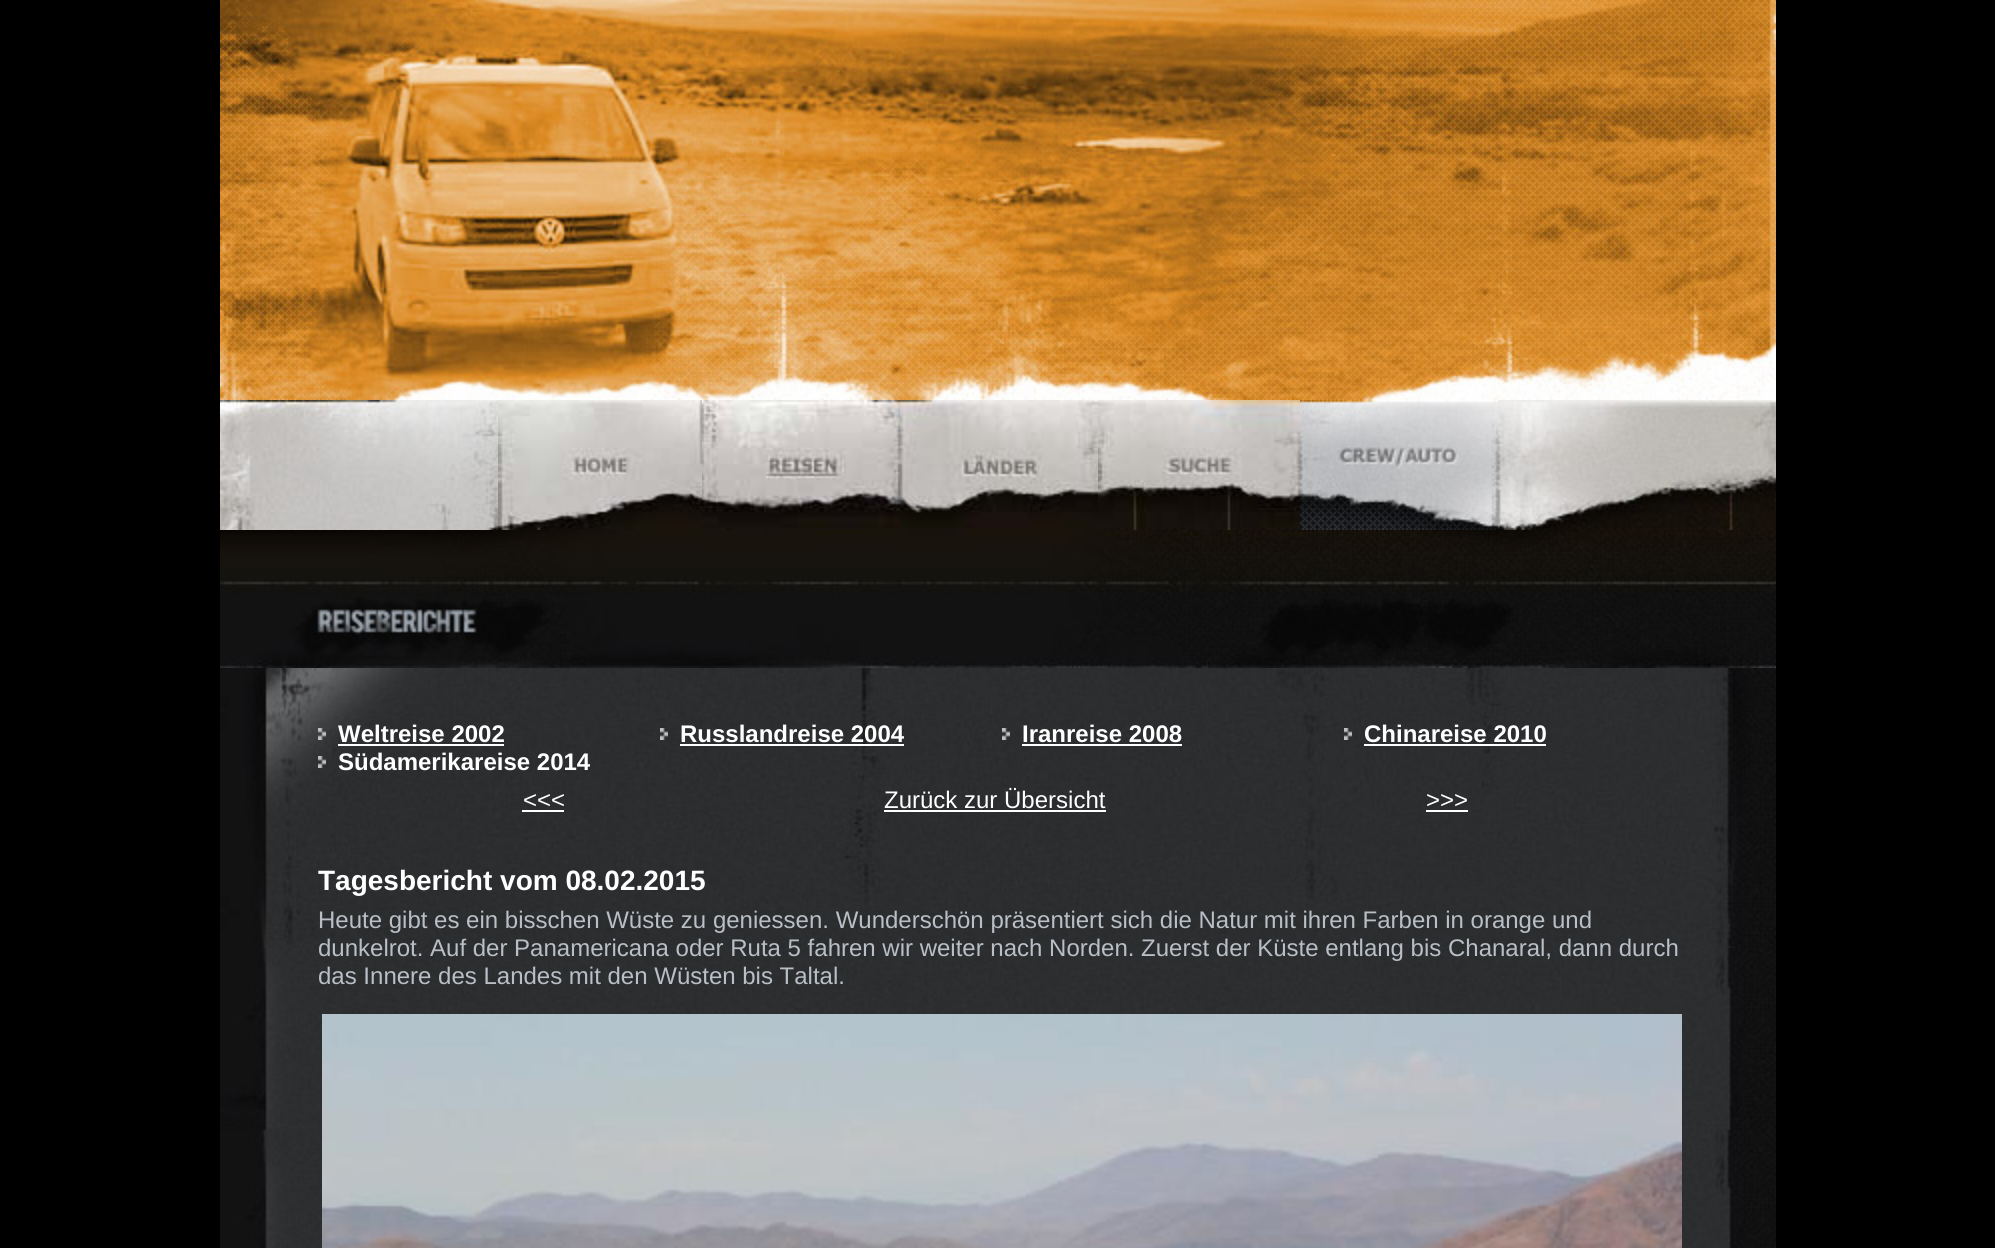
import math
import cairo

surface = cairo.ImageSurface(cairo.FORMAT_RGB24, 1995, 1248)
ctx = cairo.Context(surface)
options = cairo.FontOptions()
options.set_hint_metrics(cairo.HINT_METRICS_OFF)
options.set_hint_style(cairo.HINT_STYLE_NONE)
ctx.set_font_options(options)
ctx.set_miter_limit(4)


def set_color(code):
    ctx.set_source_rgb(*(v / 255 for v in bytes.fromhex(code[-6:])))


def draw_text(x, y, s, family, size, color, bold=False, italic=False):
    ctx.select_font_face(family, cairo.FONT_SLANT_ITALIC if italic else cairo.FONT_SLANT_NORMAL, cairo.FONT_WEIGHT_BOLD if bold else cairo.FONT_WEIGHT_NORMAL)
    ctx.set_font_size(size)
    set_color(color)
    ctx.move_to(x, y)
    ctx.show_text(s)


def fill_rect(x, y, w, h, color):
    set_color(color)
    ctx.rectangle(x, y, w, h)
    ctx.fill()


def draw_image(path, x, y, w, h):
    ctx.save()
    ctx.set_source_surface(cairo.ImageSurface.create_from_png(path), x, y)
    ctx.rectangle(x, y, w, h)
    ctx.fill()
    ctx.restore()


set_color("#000000")
ctx.paint()
draw_image("assets/img1.png", 220, 0, 1556, 400)
draw_image("assets/img2.png", 220, 400, 278, 130)
draw_image("assets/img3.png", 1498, 400, 278, 130)
draw_image("assets/img4.png", 498, 400, 204, 130)
draw_image("assets/img5.png", 702, 400, 198, 130)
draw_image("assets/img6.png", 900, 400, 198, 130)
draw_image("assets/img7.png", 1098, 400, 202, 130)
draw_image("assets/img8.png", 1300, 400, 198, 130)
draw_image("assets/img9.png", 220, 668, 1556, 580)
draw_image("assets/img10.png", 220, 530, 1556, 138)
draw_image("assets/img11.png", 229, 668, 1547, 280)
draw_image("assets/img12.png", 318, 728, 8, 12)
draw_text(338, 742, "Weltreise 2002", "Liberation Sans", 24, "#ffffff", bold=True)
fill_rect(338, 744, 166, 2, "#ffffff")
draw_image("assets/img13.png", 660, 728, 8, 12)
draw_text(680, 742, "Russlandreise 2004", "Liberation Sans", 24, "#ffffff", bold=True)
fill_rect(680, 744, 224, 2, "#ffffff")
draw_image("assets/img14.png", 1002, 728, 8, 12)
draw_text(1022, 742, "Iranreise 2008", "Liberation Sans", 24, "#ffffff", bold=True)
fill_rect(1022, 744, 160, 2, "#ffffff")
draw_image("assets/img15.png", 1344, 728, 8, 12)
draw_text(1364, 742, "Chinareise 2010", "Liberation Sans", 24, "#ffffff", bold=True)
fill_rect(1364, 744, 182, 2, "#ffffff")
draw_image("assets/img16.png", 318, 756, 8, 12)
draw_text(338, 770, "Südamerikareise 2014", "Liberation Sans", 24, "#ffffff", bold=True)
draw_text(523, 808, "<<<", "Liberation Sans", 24, "#ffffff")
fill_rect(522, 810, 42, 2, "#ffffff")
draw_text(884, 808, "Zurück zur Übersicht", "Liberation Sans", 24, "#ffffff")
fill_rect(884, 810, 222, 2, "#ffffff")
draw_text(1426, 808, ">>>", "Liberation Sans", 24, "#ffffff")
fill_rect(1426, 810, 42, 2, "#ffffff")
draw_text(318, 890, "Tagesbericht vom 08.02.2015", "Liberation Sans", 28, "#ffffff", bold=True)
draw_text(318, 928, "Heute gibt es ein bisschen Wüste zu geniessen. Wunderschön präsentiert sich die Natur mit ihren Farben in orange und", "Liberation Sans", 24, "#b8bfc6")
draw_text(318, 956, "dunkelrot. Auf der Panamericana oder Ruta 5 fahren wir weiter nach Norden. Zuerst der Küste entlang bis Chanaral, dann durch", "Liberation Sans", 24, "#b8bfc6")
draw_text(318, 984, "das Innere des Landes mit den Wüsten bis Taltal.", "Liberation Sans", 24, "#b8bfc6")
draw_image("assets/img17.png", 322, 1014, 1360, 234)
surface.write_to_png("output.png")
